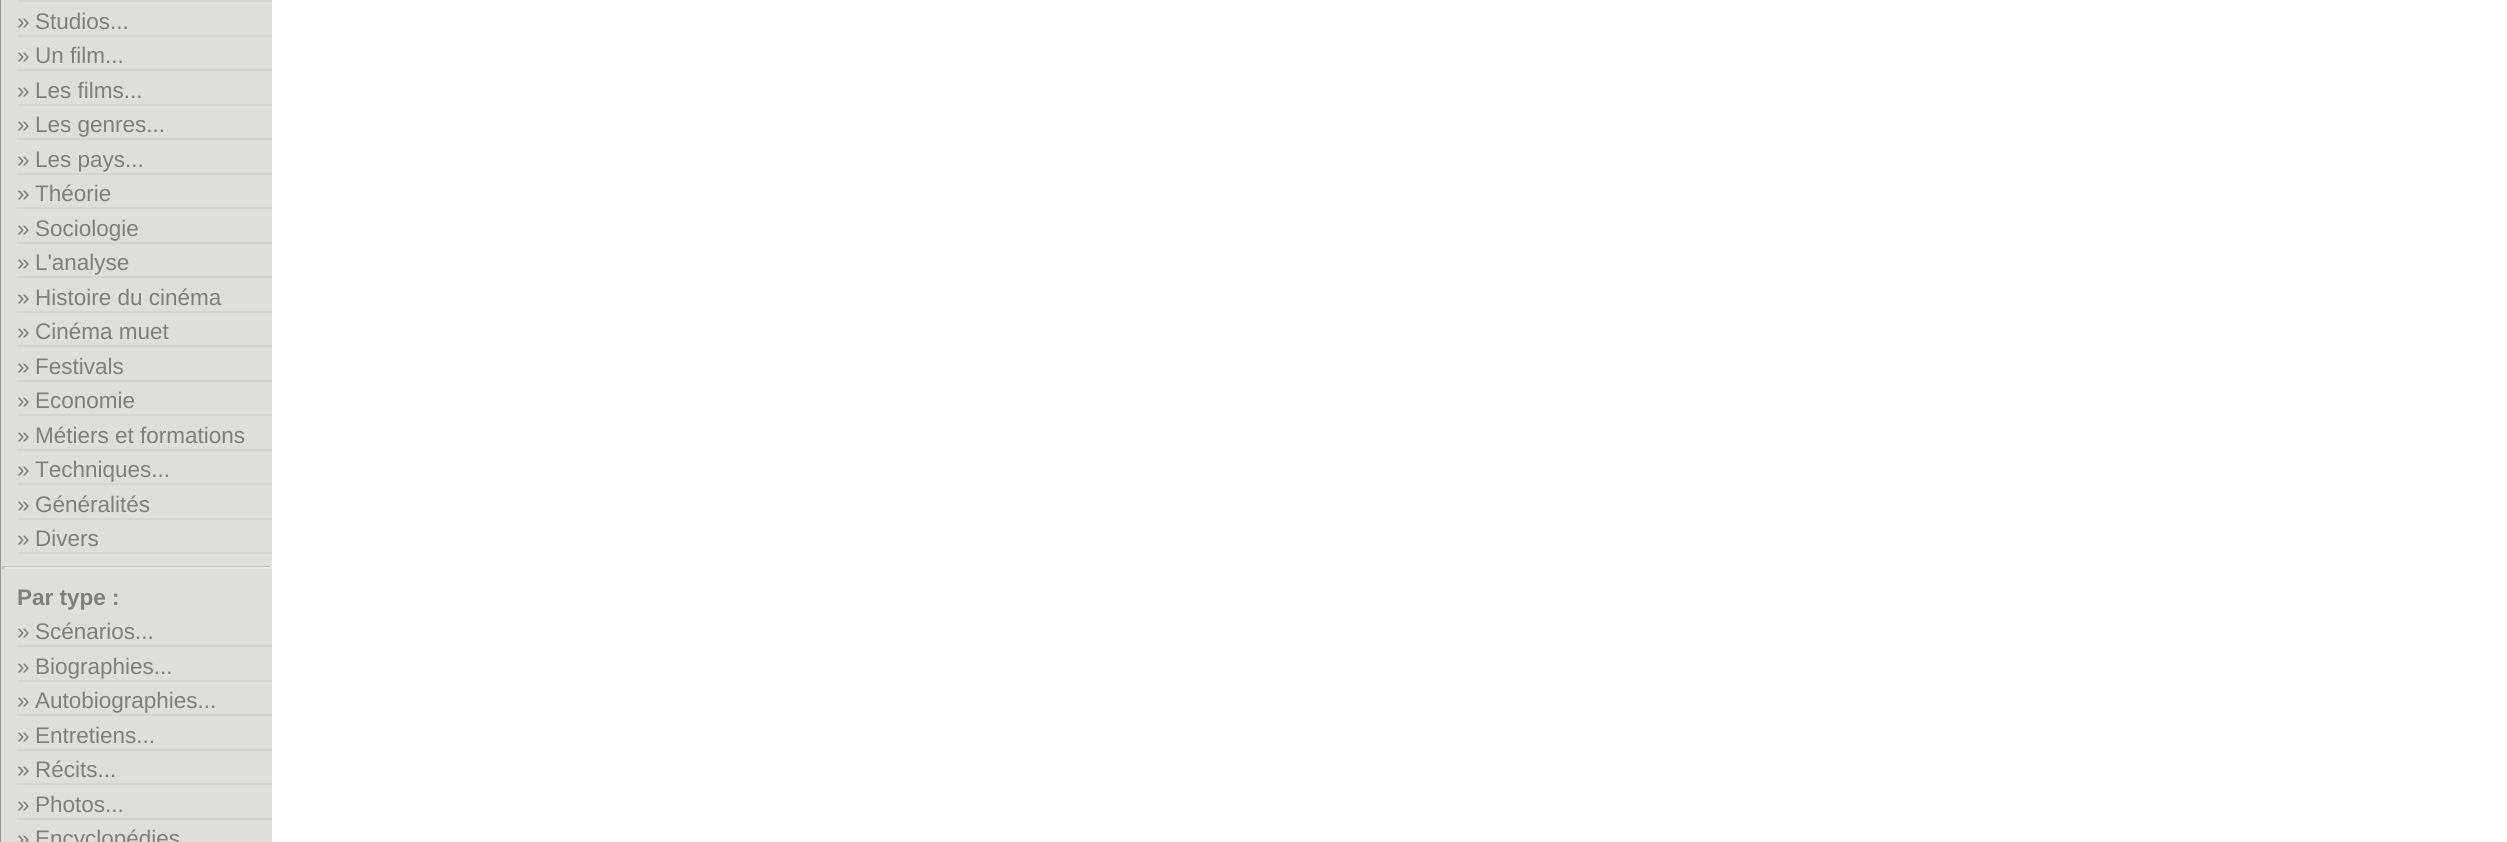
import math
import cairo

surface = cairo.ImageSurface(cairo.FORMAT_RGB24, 2507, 842)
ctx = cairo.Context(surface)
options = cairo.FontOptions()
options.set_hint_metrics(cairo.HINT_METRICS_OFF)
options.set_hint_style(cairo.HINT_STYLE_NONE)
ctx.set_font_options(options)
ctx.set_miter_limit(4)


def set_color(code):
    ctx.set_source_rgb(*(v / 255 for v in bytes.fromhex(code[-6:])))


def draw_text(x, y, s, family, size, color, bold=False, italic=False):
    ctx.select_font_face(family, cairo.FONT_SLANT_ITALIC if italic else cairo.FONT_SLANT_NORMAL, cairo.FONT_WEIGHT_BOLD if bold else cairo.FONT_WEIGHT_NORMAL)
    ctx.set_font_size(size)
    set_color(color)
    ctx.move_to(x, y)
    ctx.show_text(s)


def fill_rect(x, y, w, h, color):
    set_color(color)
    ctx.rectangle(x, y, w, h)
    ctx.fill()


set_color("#ffffff")
ctx.paint()
fill_rect(0, 0, 1, 842, "#999999")
fill_rect(1, 0, 271, 842, "#dededc")
fill_rect(17, 0, 255, 2, "#d5d5d4")
fill_rect(17, 35, 255, 2, "#d5d5d4")
draw_text(17, 29, "»", "Liberation Sans", 22.5, "#7f7f7e")
draw_text(35, 29, "Studios...", "Liberation Sans", 22.5, "#7f7f7e")
fill_rect(17, 69, 255, 2, "#d5d5d4")
draw_text(17, 63, "»", "Liberation Sans", 22.5, "#7f7f7e")
draw_text(35, 63, "Un film...", "Liberation Sans", 22.5, "#7f7f7e")
fill_rect(17, 104, 255, 2, "#d5d5d4")
draw_text(17, 98, "»", "Liberation Sans", 22.5, "#7f7f7e")
draw_text(35, 98, "Les films...", "Liberation Sans", 22.5, "#7f7f7e")
fill_rect(17, 138, 255, 2, "#d5d5d4")
draw_text(17, 132, "»", "Liberation Sans", 22.5, "#7f7f7e")
draw_text(35, 132, "Les genres...", "Liberation Sans", 22.5, "#7f7f7e")
fill_rect(17, 173, 255, 2, "#d5d5d4")
draw_text(17, 167, "»", "Liberation Sans", 22.5, "#7f7f7e")
draw_text(35, 167, "Les pays...", "Liberation Sans", 22.5, "#7f7f7e")
fill_rect(17, 207, 255, 2, "#d5d5d4")
draw_text(17, 201, "»", "Liberation Sans", 22.5, "#7f7f7e")
draw_text(35, 201, "Théorie", "Liberation Sans", 22.5, "#7f7f7e")
fill_rect(17, 242, 255, 2, "#d5d5d4")
draw_text(17, 236, "»", "Liberation Sans", 22.5, "#7f7f7e")
draw_text(35, 236, "Sociologie", "Liberation Sans", 22.5, "#7f7f7e")
fill_rect(17, 276, 255, 2, "#d5d5d4")
draw_text(17, 270, "»", "Liberation Sans", 22.5, "#7f7f7e")
draw_text(35, 270, "L'analyse", "Liberation Sans", 22.5, "#7f7f7e")
fill_rect(17, 311, 255, 2, "#d5d5d4")
draw_text(17, 305, "»", "Liberation Sans", 22.5, "#7f7f7e")
draw_text(35, 305, "Histoire du cinéma", "Liberation Sans", 22.5, "#7f7f7e")
fill_rect(17, 345, 255, 2, "#d5d5d4")
draw_text(17, 339, "»", "Liberation Sans", 22.5, "#7f7f7e")
draw_text(35, 339, "Cinéma muet", "Liberation Sans", 22.5, "#7f7f7e")
fill_rect(17, 380, 255, 2, "#d5d5d4")
draw_text(17, 374, "»", "Liberation Sans", 22.5, "#7f7f7e")
draw_text(35, 374, "Festivals", "Liberation Sans", 22.5, "#7f7f7e")
fill_rect(17, 414, 255, 2, "#d5d5d4")
draw_text(17, 408, "»", "Liberation Sans", 22.5, "#7f7f7e")
draw_text(35, 408, "Economie", "Liberation Sans", 22.5, "#7f7f7e")
fill_rect(17, 449, 255, 2, "#d5d5d4")
draw_text(17, 443, "»", "Liberation Sans", 22.5, "#7f7f7e")
draw_text(35, 443, "Métiers et formations", "Liberation Sans", 22.5, "#7f7f7e")
fill_rect(17, 483, 255, 2, "#d5d5d4")
draw_text(17, 477, "»", "Liberation Sans", 22.5, "#7f7f7e")
draw_text(35, 477, "Techniques...", "Liberation Sans", 22.5, "#7f7f7e")
fill_rect(17, 518, 255, 2, "#d5d5d4")
draw_text(17, 512, "»", "Liberation Sans", 22.5, "#7f7f7e")
draw_text(35, 512, "Généralités", "Liberation Sans", 22.5, "#7f7f7e")
fill_rect(17, 552, 255, 2, "#d5d5d4")
draw_text(17, 546, "»", "Liberation Sans", 22.5, "#7f7f7e")
draw_text(35, 546, "Divers", "Liberation Sans", 22.5, "#7f7f7e")
fill_rect(2, 566, 270, 1, "#bfbfbe")
fill_rect(270, 566, 2, 3, "#e6e6e5")
fill_rect(2, 567, 270, 2, "#e6e6e5")
fill_rect(2, 566, 2, 3, "#bfbfbe")
draw_text(17, 605, "Par type :", "Liberation Sans", 22.5, "#7f7f7e", bold=True)
fill_rect(17, 645, 255, 2, "#d5d5d4")
draw_text(17, 639, "»", "Liberation Sans", 22.5, "#7f7f7e")
draw_text(35, 639, "Scénarios...", "Liberation Sans", 22.5, "#7f7f7e")
fill_rect(17, 680, 255, 2, "#d5d5d4")
draw_text(17, 674, "»", "Liberation Sans", 22.5, "#7f7f7e")
draw_text(35, 674, "Biographies...", "Liberation Sans", 22.5, "#7f7f7e")
fill_rect(17, 714, 255, 2, "#d5d5d4")
draw_text(17, 708, "»", "Liberation Sans", 22.5, "#7f7f7e")
draw_text(35, 708, "Autobiographies...", "Liberation Sans", 22.5, "#7f7f7e")
fill_rect(17, 749, 255, 2, "#d5d5d4")
draw_text(17, 743, "»", "Liberation Sans", 22.5, "#7f7f7e")
draw_text(35, 743, "Entretiens...", "Liberation Sans", 22.5, "#7f7f7e")
fill_rect(17, 783, 255, 2, "#d5d5d4")
draw_text(17, 777, "»", "Liberation Sans", 22.5, "#7f7f7e")
draw_text(35, 777, "Récits...", "Liberation Sans", 22.5, "#7f7f7e")
fill_rect(17, 818, 255, 2, "#d5d5d4")
draw_text(17, 812, "»", "Liberation Sans", 22.5, "#7f7f7e")
draw_text(35, 812, "Photos...", "Liberation Sans", 22.5, "#7f7f7e")
draw_text(17, 846, "»", "Liberation Sans", 22.5, "#7f7f7e")
draw_text(35, 846, "Encyclopédies", "Liberation Sans", 22.5, "#7f7f7e")
surface.write_to_png("output.png")
